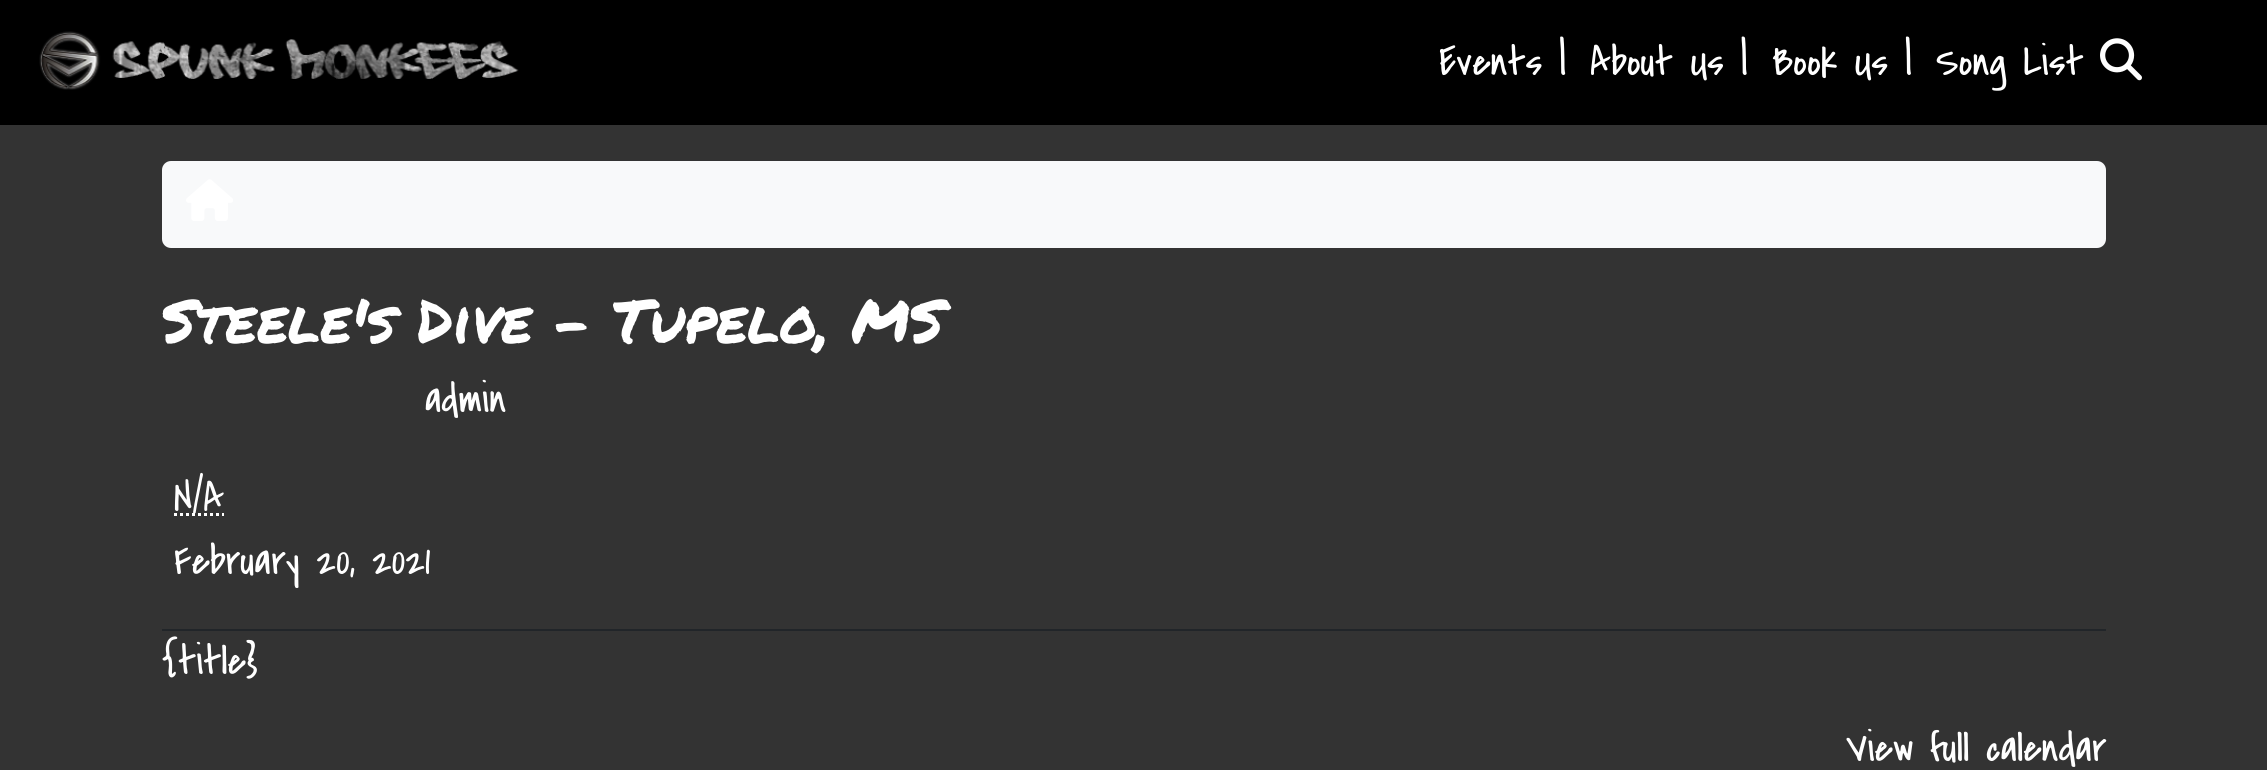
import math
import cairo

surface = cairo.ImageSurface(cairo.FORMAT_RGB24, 2267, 770)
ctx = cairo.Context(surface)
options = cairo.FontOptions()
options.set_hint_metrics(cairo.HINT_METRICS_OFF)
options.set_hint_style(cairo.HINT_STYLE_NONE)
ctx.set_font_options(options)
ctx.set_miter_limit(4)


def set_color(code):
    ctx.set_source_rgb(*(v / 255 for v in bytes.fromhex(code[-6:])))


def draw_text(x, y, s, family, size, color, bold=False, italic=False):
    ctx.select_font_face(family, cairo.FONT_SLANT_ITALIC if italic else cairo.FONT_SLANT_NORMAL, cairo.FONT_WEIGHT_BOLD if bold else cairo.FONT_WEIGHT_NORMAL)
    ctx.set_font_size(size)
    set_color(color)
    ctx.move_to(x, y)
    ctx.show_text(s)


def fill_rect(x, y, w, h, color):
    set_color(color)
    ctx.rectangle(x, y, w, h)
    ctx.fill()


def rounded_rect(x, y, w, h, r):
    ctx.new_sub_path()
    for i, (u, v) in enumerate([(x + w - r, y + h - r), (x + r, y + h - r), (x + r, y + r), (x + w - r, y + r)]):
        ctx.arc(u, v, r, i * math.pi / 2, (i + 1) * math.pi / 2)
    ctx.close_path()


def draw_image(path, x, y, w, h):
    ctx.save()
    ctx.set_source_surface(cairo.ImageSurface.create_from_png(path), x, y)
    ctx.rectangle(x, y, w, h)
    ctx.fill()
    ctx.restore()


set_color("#333333")
ctx.paint()
fill_rect(0, 0, 2267, 125, "#000000")
draw_image("assets/img1.png", 39, 31, 480, 59)
draw_text(1439, 75, "Events |", "Covered By Your Grace", 42, "#ffffff")
draw_text(1590, 75, "About Us |", "Covered By Your Grace", 42, "#ffffff")
draw_text(1772, 75, "Book Us |", "Covered By Your Grace", 42, "#ffffff")
draw_text(1936, 75, "Song List", "Covered By Your Grace", 42, "#ffffff")
draw_image("assets/img2.png", 2100, 38, 42, 43)
set_color("#f8f9fa")
rounded_rect(162, 161, 1944, 87, 9)
ctx.fill()
draw_image("assets/img3.png", 186, 179, 47, 42)
draw_text(162, 343, "Steele's Dive - Tupelo, MS", "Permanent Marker", 60, "#ffffff")
draw_text(425, 412, "admin", "Covered By Your Grace", 42, "#ffffff")
fill_rect(162, 629, 1944, 2, "#212529")
ctx.new_path()
ctx.move_to(174, 514.5)
ctx.line_to(224, 514.5)
set_color("#ffffff")
ctx.set_line_width(3)
ctx.set_dash([3, 3])
ctx.stroke()
draw_text(174, 511, "N/A", "Covered By Your Grace", 42, "#ffffff")
draw_text(174, 574, "February 20, 2021", "Covered By Your Grace", 42, "#ffffff")
draw_text(162, 674, "{title}", "Covered By Your Grace", 42, "#ffffff")
draw_text(1846, 761, "View full calendar", "Covered By Your Grace", 42, "#ffffff")
surface.write_to_png("output.png")
